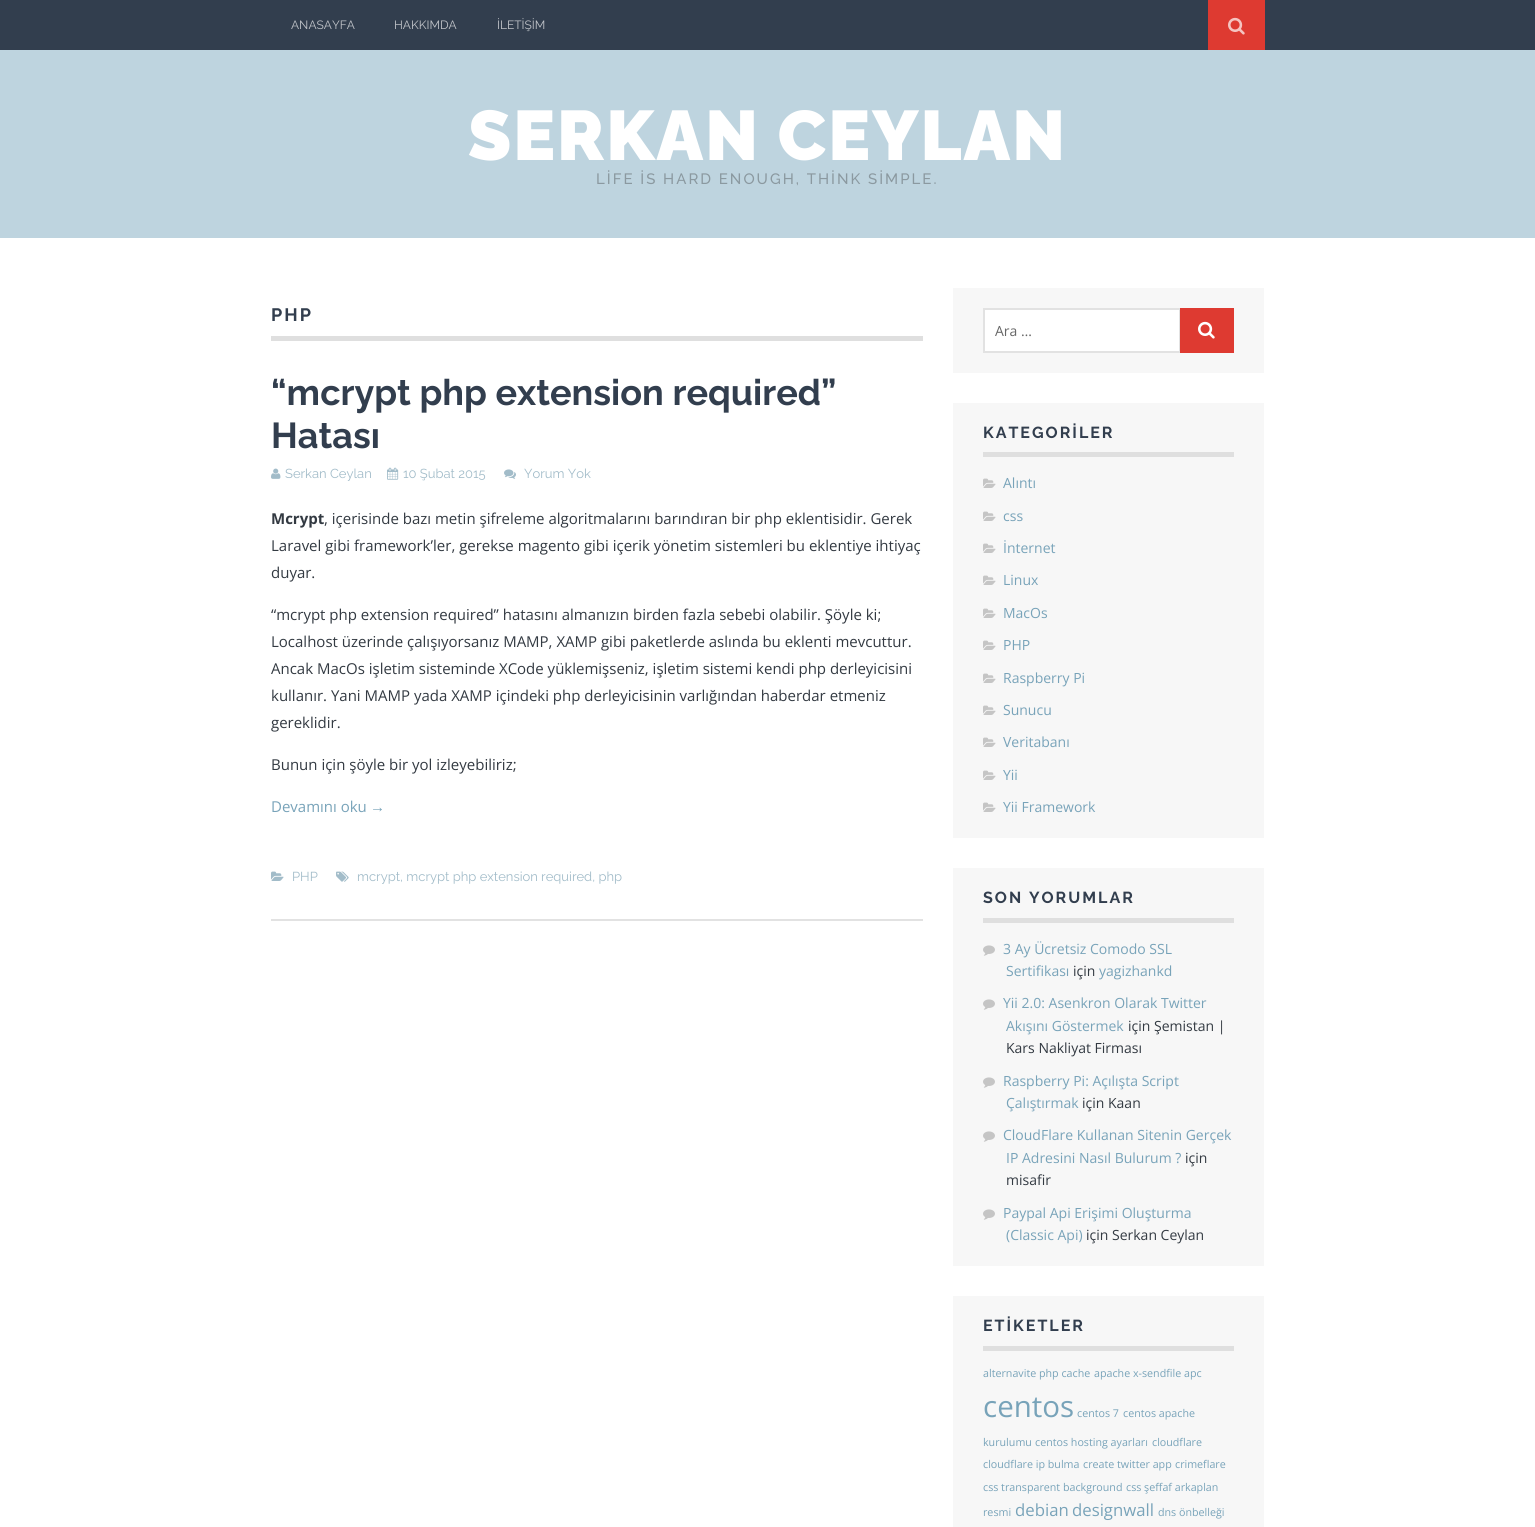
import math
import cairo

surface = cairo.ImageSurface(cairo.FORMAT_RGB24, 1535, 1527)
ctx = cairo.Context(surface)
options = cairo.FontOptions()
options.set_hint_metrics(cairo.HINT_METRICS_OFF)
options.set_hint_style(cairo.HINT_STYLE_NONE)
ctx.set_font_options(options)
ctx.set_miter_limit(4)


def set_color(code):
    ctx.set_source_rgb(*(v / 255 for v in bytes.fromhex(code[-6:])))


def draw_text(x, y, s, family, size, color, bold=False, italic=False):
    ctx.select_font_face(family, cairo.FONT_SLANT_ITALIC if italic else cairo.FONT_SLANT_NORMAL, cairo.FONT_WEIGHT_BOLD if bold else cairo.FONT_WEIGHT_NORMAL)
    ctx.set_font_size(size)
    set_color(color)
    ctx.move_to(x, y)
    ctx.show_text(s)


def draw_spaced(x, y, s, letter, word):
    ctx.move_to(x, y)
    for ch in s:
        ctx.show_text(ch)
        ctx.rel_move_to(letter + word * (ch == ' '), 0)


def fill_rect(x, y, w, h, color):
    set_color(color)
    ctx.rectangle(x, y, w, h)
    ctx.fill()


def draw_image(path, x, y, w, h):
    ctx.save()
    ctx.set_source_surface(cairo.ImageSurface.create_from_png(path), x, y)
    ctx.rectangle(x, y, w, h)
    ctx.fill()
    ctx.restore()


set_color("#ffffff")
ctx.paint()
fill_rect(0, 0, 1535, 50, "#323e4e")
draw_text(291, 29, "ANASAYFA", "Raleway", 12, "#c2c5ca")
draw_text(394, 29, "HAKKIMDA", "Raleway", 12, "#c2c5ca")
draw_text(497, 29, "İLETİŞİM", "Raleway", 12, "#c2c5ca")
fill_rect(1208, 0, 57, 50, "#de3a31")
draw_image("assets/img1.png", 1228, 17, 17, 18)
fill_rect(0, 50, 1535, 188, "#bed4df")
ctx.select_font_face("Raleway Black")
ctx.set_font_size(70)
set_color("#ffffff")
draw_spaced(468, 160, "SERKAN CEYLAN", 2, 0)
ctx.select_font_face("Raleway Medium")
ctx.set_font_size(15)
set_color("#8b99a0")
draw_spaced(596, 184, "LİFE İS HARD ENOUGH, THİNK SİMPLE.", 2, 0)
fill_rect(271, 336, 652, 5, "#dfdfdf")
ctx.select_font_face("Raleway", cairo.FONT_SLANT_NORMAL, cairo.FONT_WEIGHT_BOLD)
ctx.set_font_size(18)
set_color("#323e4e")
draw_spaced(271, 321, "PHP", 2, 0)
fill_rect(271, 919, 652, 2, "#e2e2e2")
draw_text(271, 405, "“mcrypt php extension required”", "Raleway", 36, "#323e4e", bold=True)
draw_text(271, 448, "Hatası", "Raleway", 36, "#323e4e", bold=True)
draw_image("assets/img2.png", 271, 468, 10, 11)
draw_text(285, 478, "Serkan Ceylan", "Raleway", 13, "#a2bcc9")
draw_image("assets/img3.png", 387, 467, 12, 13)
draw_text(403, 478, "10 Şubat 2015", "Raleway", 13, "#a2bcc9")
draw_image("assets/img4.png", 504, 469, 12, 10)
draw_text(524, 478, "Yorum Yok", "Raleway", 13, "#a2bcc9")
draw_text(271, 524, "Mcrypt", "Open Sans", 15, "#333a42", bold=True)
draw_text(324, 524, ", içerisinde bazı metin şifreleme algoritmalarını barındıran bir php eklentisidir. Gerek", "Open Sans", 15, "#333a42")
draw_text(271, 551, "Laravel gibi framework’ler, gerekse magento gibi içerik yönetim sistemleri bu eklentiye ihtiyaç", "Open Sans", 15, "#333a42")
draw_text(271, 578, "duyar.", "Open Sans", 15, "#333a42")
draw_text(271, 620, "“mcrypt php extension required” hatasını almanızın birden fazla sebebi olabilir. Şöyle ki;", "Open Sans", 15, "#333a42")
draw_text(271, 647, "Localhost üzerinde çalışıyorsanız MAMP, XAMP gibi paketlerde aslında bu eklenti mevcuttur.", "Open Sans", 15, "#333a42")
draw_text(271, 674, "Ancak MacOs işletim sisteminde XCode yüklemişseniz, işletim sistemi kendi php derleyicisini", "Open Sans", 15, "#333a42")
draw_text(271, 701, "kullanır. Yani MAMP yada XAMP içindeki php derleyicisinin varlığından haberdar etmeniz", "Open Sans", 15, "#333a42")
draw_text(271, 728, "gereklidir.", "Open Sans", 15, "#333a42")
draw_text(271, 770, "Bunun için şöyle bir yol izleyebiliriz;", "Open Sans", 15, "#333a42")
draw_text(271, 812, "Devamını oku", "Open Sans", 15, "#78a3b9")
draw_text(370, 812, "→", "Liberation Sans", 15, "#78a3b9")
draw_image("assets/img5.png", 271, 871, 13, 10)
draw_text(292, 881, "PHP", "Raleway", 13, "#a2bcc9")
draw_image("assets/img6.png", 336, 871, 13, 11)
draw_text(357, 881, "mcrypt, mcrypt php extension required, php", "Raleway", 13, "#a2bcc9")
fill_rect(953, 288, 311, 85, "#f7f7f7")
set_color("#ffffff")
ctx.rectangle(984, 309, 196, 43)
ctx.fill_preserve()
set_color("#e2e2e2")
ctx.stroke()
draw_text(995, 336, "Ara …", "Open Sans", 14, "#666666")
fill_rect(1180, 308, 54, 45, "#de3a31")
draw_image("assets/img7.png", 1198, 321, 17, 18)
fill_rect(953, 403, 311, 435, "#f7f7f7")
fill_rect(983, 452, 251, 5, "#dfdfdf")
ctx.select_font_face("Raleway", cairo.FONT_SLANT_NORMAL, cairo.FONT_WEIGHT_BOLD)
ctx.set_font_size(16)
set_color("#323e4e")
draw_spaced(983, 438, "KATEGORİLER", 2, 0)
draw_image("assets/img8.png", 983, 478, 13, 10)
draw_text(1003, 488, "Alıntı", "Open Sans", 14, "#78a3b9")
draw_image("assets/img8.png", 983, 511, 13, 10)
draw_text(1003, 521, "css", "Open Sans", 14, "#78a3b9")
draw_image("assets/img8.png", 983, 543, 13, 10)
draw_text(1003, 553, "İnternet", "Open Sans", 14, "#78a3b9")
draw_image("assets/img8.png", 983, 575, 13, 10)
draw_text(1003, 585, "Linux", "Open Sans", 14, "#78a3b9")
draw_image("assets/img8.png", 983, 608, 13, 10)
draw_text(1003, 618, "MacOs", "Open Sans", 14, "#78a3b9")
draw_image("assets/img8.png", 983, 640, 13, 10)
draw_text(1003, 650, "PHP", "Open Sans", 14, "#78a3b9")
draw_image("assets/img8.png", 983, 673, 13, 10)
draw_text(1003, 683, "Raspberry Pi", "Open Sans", 14, "#78a3b9")
draw_image("assets/img8.png", 983, 705, 13, 10)
draw_text(1003, 715, "Sunucu", "Open Sans", 14, "#78a3b9")
draw_image("assets/img8.png", 983, 737, 13, 10)
draw_text(1003, 747, "Veritabanı", "Open Sans", 14, "#78a3b9")
draw_image("assets/img8.png", 983, 770, 13, 10)
draw_text(1003, 780, "Yii", "Open Sans", 14, "#78a3b9")
draw_image("assets/img8.png", 983, 802, 13, 10)
draw_text(1003, 812, "Yii Framework", "Open Sans", 14, "#78a3b9")
fill_rect(953, 868, 311, 398, "#f7f7f7")
fill_rect(983, 918, 251, 5, "#dfdfdf")
ctx.select_font_face("Raleway", cairo.FONT_SLANT_NORMAL, cairo.FONT_WEIGHT_BOLD)
ctx.set_font_size(16)
set_color("#323e4e")
draw_spaced(983, 903, "SON YORUMLAR", 2, 0)
draw_image("assets/img9.png", 983, 945, 12, 11)
draw_text(1003, 954, "3 Ay Ücretsiz Comodo SSL", "Open Sans", 14, "#78a3b9")
draw_text(1006, 976, "Sertifikası", "Open Sans", 14, "#78a3b9")
draw_text(1073, 976, "için", "Open Sans", 14, "#333a42")
draw_text(1099, 976, "yagizhankd", "Open Sans", 14, "#78a3b9")
draw_image("assets/img9.png", 983, 999, 12, 11)
draw_text(1003, 1008, "Yii 2.0: Asenkron Olarak Twitter", "Open Sans", 14, "#78a3b9")
draw_text(1006, 1031, "Akışını Göstermek", "Open Sans", 14, "#78a3b9")
draw_text(1128, 1031, "için Şemistan |", "Open Sans", 14, "#333a42")
draw_text(1006, 1053, "Kars Nakliyat Firması", "Open Sans", 14, "#333a42")
draw_image("assets/img9.png", 983, 1077, 12, 11)
draw_text(1003, 1086, "Raspberry Pi: Açılışta Script", "Open Sans", 14, "#78a3b9")
draw_text(1006, 1108, "Çalıştırmak", "Open Sans", 14, "#78a3b9")
draw_text(1082, 1108, "için Kaan", "Open Sans", 14, "#333a42")
draw_image("assets/img9.png", 983, 1131, 12, 11)
draw_text(1003, 1140, "CloudFlare Kullanan Sitenin Gerçek", "Open Sans", 14, "#78a3b9")
draw_text(1006, 1163, "IP Adresini Nasıl Bulurum ?", "Open Sans", 14, "#78a3b9")
draw_text(1185, 1163, "için", "Open Sans", 14, "#333a42")
draw_text(1006, 1185, "misafir", "Open Sans", 14, "#333a42")
draw_image("assets/img9.png", 983, 1209, 12, 11)
draw_text(1003, 1218, "Paypal Api Erişimi Oluşturma", "Open Sans", 14, "#78a3b9")
draw_text(1006, 1240, "(Classic Api)", "Open Sans", 14, "#78a3b9")
draw_text(1086, 1240, "için Serkan Ceylan", "Open Sans", 14, "#333a42")
fill_rect(953, 1296, 311, 231, "#f7f7f7")
fill_rect(983, 1346, 251, 5, "#dfdfdf")
ctx.select_font_face("Raleway", cairo.FONT_SLANT_NORMAL, cairo.FONT_WEIGHT_BOLD)
ctx.set_font_size(16)
set_color("#323e4e")
draw_spaced(983, 1331, "ETİKETLER", 2, 0)
draw_text(983, 1377, "alternavite php cache", "Open Sans", 10.7, "#78a3b9")
draw_text(1094, 1377, "apache x-sendfile", "Open Sans", 10.7, "#78a3b9")
draw_text(1184, 1377, "apc", "Open Sans", 10.7, "#78a3b9")
draw_text(983, 1417, "centos", "Open Sans", 29.5, "#78a3b9")
draw_text(1077, 1417, "centos 7", "Open Sans", 10.7, "#78a3b9")
draw_text(1123, 1417, "centos apache", "Open Sans", 10.7, "#78a3b9")
draw_text(983, 1446, "kurulumu", "Open Sans", 10.7, "#78a3b9")
draw_text(1035, 1446, "centos hosting ayarları", "Open Sans", 10.7, "#78a3b9")
draw_text(1152, 1446, "cloudflare", "Open Sans", 10.7, "#78a3b9")
draw_text(983, 1468, "cloudflare ip bulma", "Open Sans", 10.7, "#78a3b9")
draw_text(1083, 1468, "create twitter app", "Open Sans", 10.7, "#78a3b9")
draw_text(1175, 1468, "crimeflare", "Open Sans", 10.7, "#78a3b9")
draw_text(983, 1491, "css transparent background", "Open Sans", 10.7, "#78a3b9")
draw_text(1126, 1491, "css şeffaf arkaplan", "Open Sans", 10.7, "#78a3b9")
draw_text(983, 1516, "resmi", "Open Sans", 10.7, "#78a3b9")
draw_text(1015, 1516, "debian", "Open Sans", 16.75, "#78a3b9")
draw_text(1072, 1516, "designwall", "Open Sans", 16.75, "#78a3b9")
draw_text(1158, 1516, "dns önbelleği", "Open Sans", 10.7, "#78a3b9")
surface.write_to_png("output.png")
